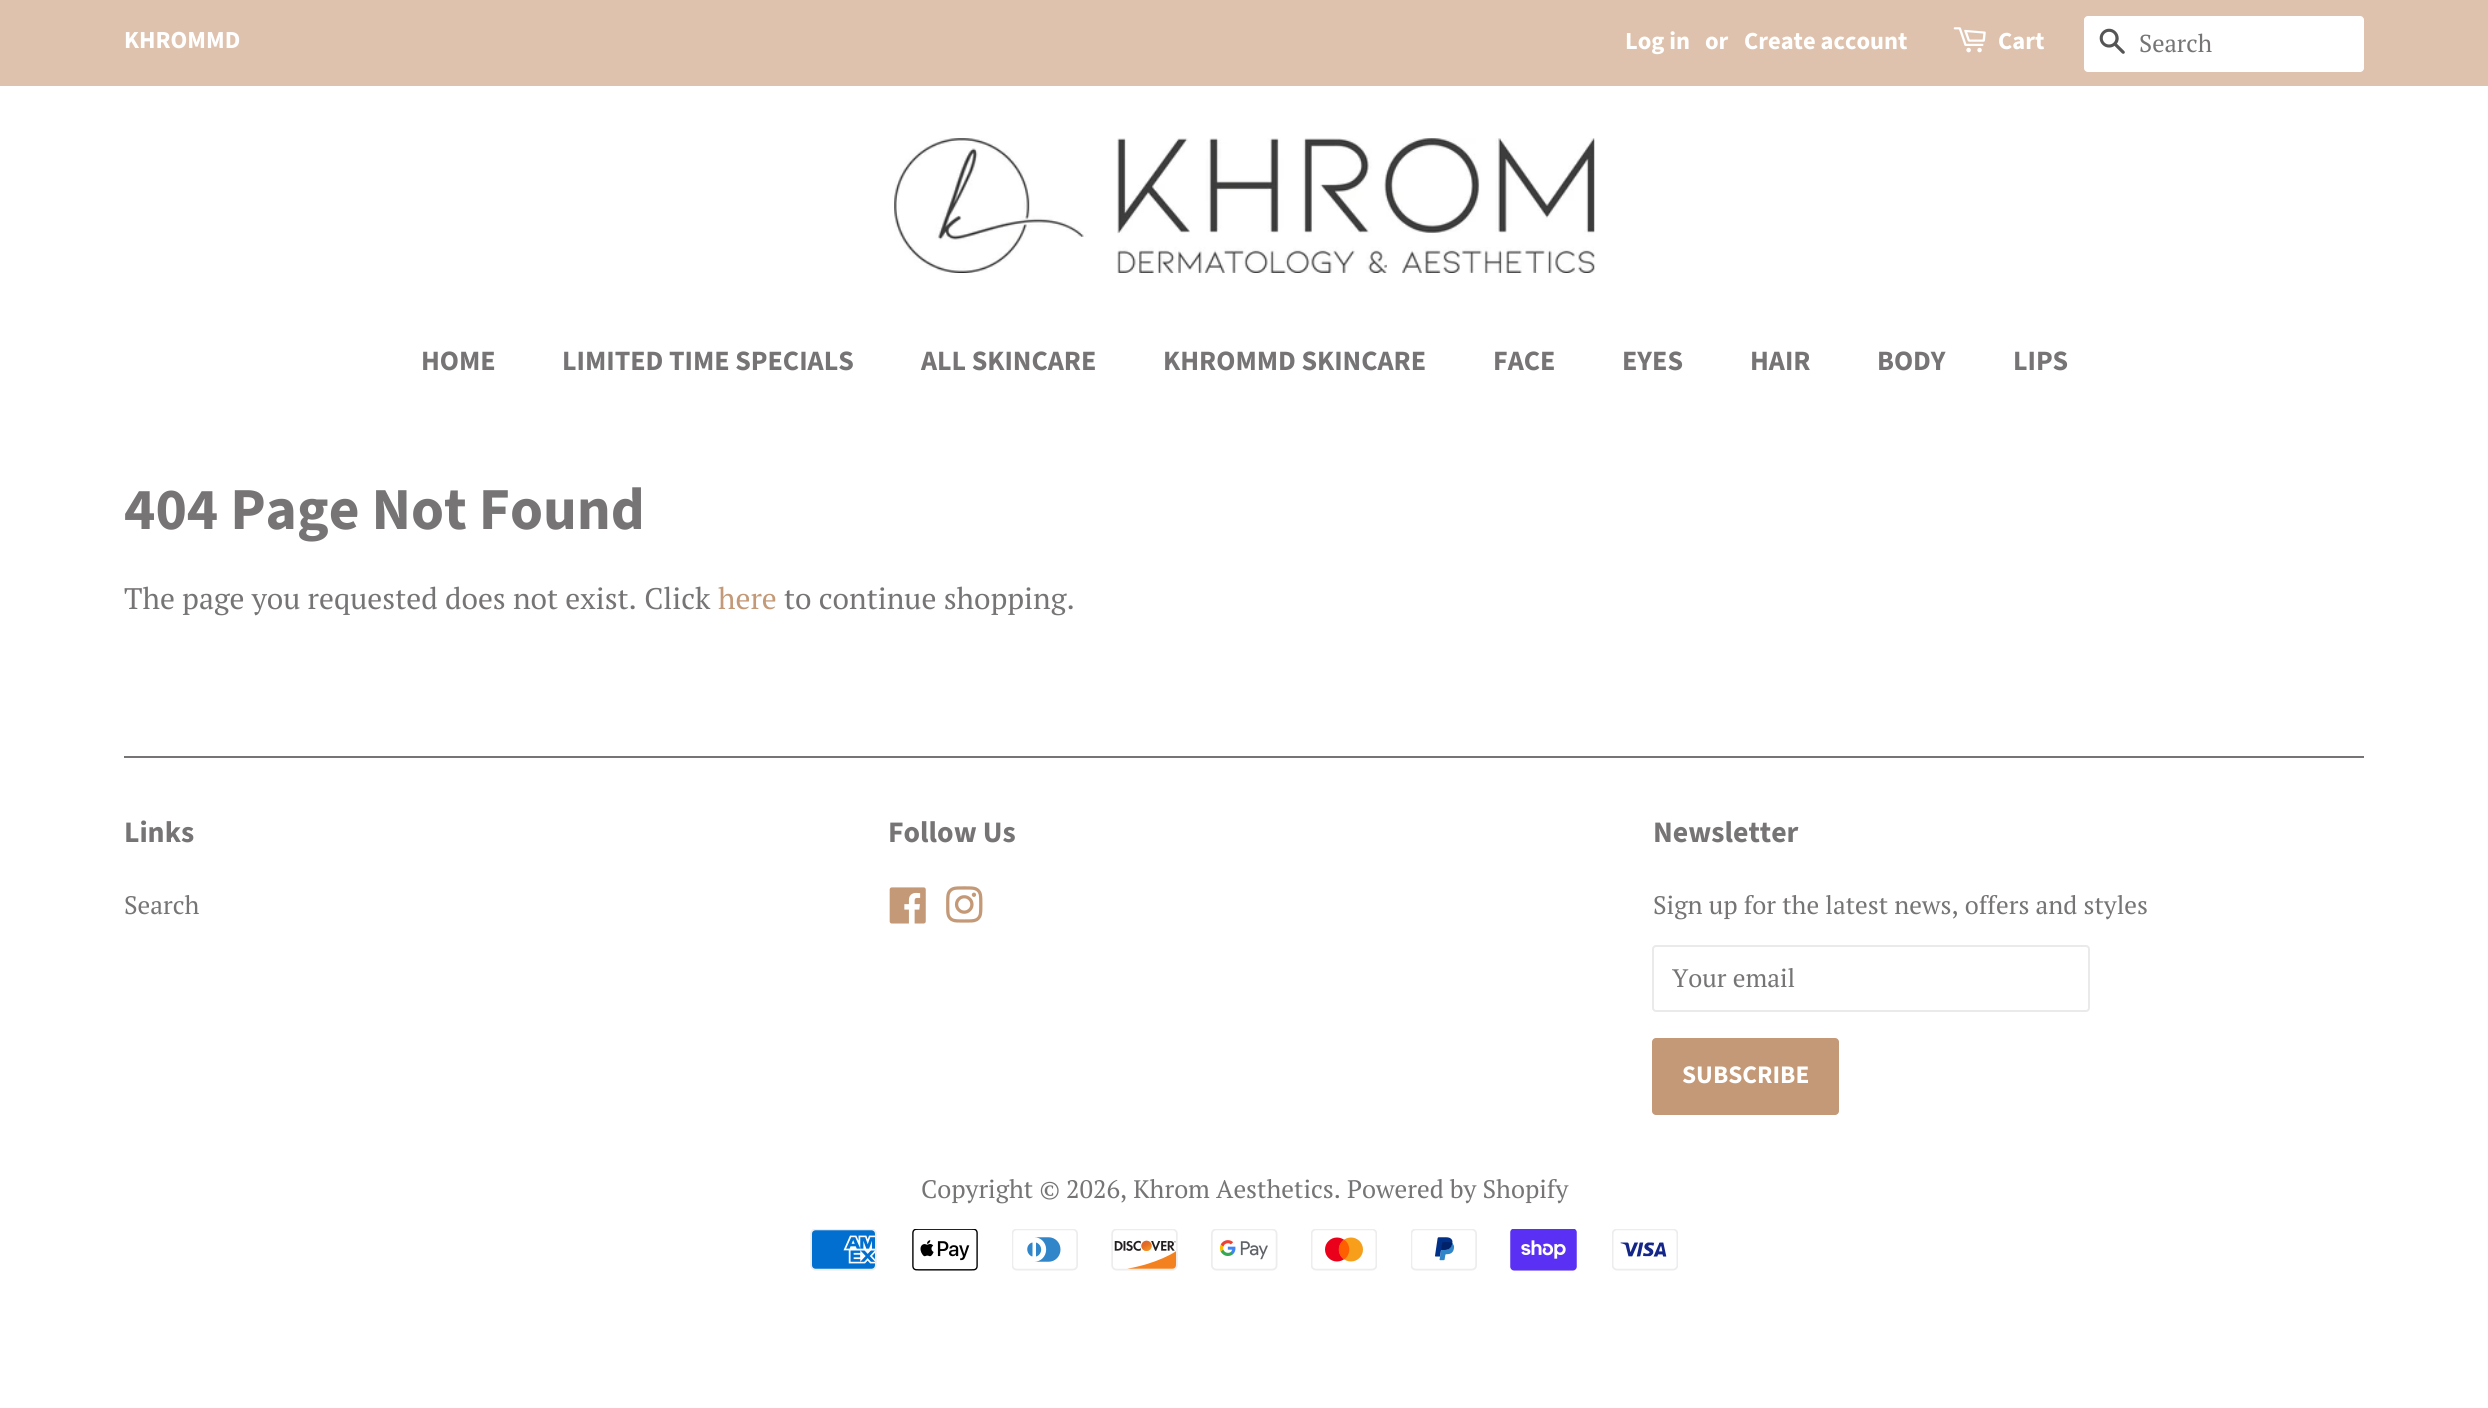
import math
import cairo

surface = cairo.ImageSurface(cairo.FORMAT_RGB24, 2488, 1408)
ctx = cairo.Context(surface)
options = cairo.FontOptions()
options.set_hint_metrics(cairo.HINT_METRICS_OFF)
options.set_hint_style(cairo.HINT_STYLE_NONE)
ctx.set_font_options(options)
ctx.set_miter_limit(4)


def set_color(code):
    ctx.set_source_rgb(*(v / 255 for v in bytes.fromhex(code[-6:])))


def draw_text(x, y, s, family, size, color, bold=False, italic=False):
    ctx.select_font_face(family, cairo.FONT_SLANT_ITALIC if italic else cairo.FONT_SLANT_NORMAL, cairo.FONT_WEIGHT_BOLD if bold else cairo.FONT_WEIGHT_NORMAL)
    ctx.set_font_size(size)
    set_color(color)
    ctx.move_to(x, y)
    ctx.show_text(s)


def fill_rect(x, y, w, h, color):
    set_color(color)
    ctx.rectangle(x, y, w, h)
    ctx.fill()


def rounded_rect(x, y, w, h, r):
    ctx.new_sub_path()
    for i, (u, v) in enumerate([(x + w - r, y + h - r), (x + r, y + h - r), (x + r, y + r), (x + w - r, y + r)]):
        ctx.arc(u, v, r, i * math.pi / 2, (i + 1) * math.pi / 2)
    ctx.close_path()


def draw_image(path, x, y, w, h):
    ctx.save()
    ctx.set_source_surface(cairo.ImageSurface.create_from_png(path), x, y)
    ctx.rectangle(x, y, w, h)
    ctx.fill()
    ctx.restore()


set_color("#ffffff")
ctx.paint()
fill_rect(0, 0, 2488, 86, "#dec2ad")
draw_text(124, 48, "KHROMMD", "Source Sans Pro", 24.5, "#ffffff", bold=True)
draw_text(1625, 49, "Log in", "Source Sans Pro", 24.5, "#ffffff", bold=True)
draw_text(1705, 49, "or", "Source Sans Pro", 24.5, "#ffffff", bold=True)
draw_text(1744, 49, "Create account", "Source Sans Pro", 24.5, "#ffffff", bold=True)
draw_image("assets/img1.png", 1953, 27, 33, 26)
draw_text(1998, 49, "Cart", "Source Sans Pro", 24.5, "#ffffff", bold=True)
rounded_rect(2084, 16, 280, 56, 4)
ctx.fill()
draw_image("assets/img2.png", 2099, 28, 26, 26)
draw_text(2139, 52, "Search", "PT Serif", 24.5, "#767474")
draw_image("assets/img3.png", 894, 138, 701, 135)
draw_text(421, 370, "HOME", "Source Sans Pro", 28, "#767474", bold=True)
draw_text(562, 370, "LIMITED TIME SPECIALS", "Source Sans Pro", 28, "#767474", bold=True)
draw_text(921, 370, "ALL SKINCARE", "Source Sans Pro", 28, "#767474", bold=True)
draw_text(1163, 370, "KHROMMD SKINCARE", "Source Sans Pro", 28, "#767474", bold=True)
draw_text(1493, 370, "FACE", "Source Sans Pro", 28, "#767474", bold=True)
draw_text(1622, 370, "EYES", "Source Sans Pro", 28, "#767474", bold=True)
draw_text(1750, 370, "HAIR", "Source Sans Pro", 28, "#767474", bold=True)
draw_text(1877, 370, "BODY", "Source Sans Pro", 28, "#767474", bold=True)
draw_text(2013, 370, "LIPS", "Source Sans Pro", 28, "#767474", bold=True)
draw_text(124, 529, "404 Page Not Found", "Source Sans Pro", 59.5, "#767474", bold=True)
draw_text(124, 609, "The page you requested does not exist. Click", "PT Serif", 29.75, "#767474")
draw_text(718, 609, "here", "PT Serif", 29.75, "#c49977")
draw_text(784, 609, "to continue shopping.", "PT Serif", 29.75, "#767474")
fill_rect(124, 756, 2240, 2, "#767474")
draw_text(124, 842, "Links", "Source Sans Pro", 29.75, "#767474", bold=True)
draw_text(124, 914, "Search", "PT Serif", 25.3, "#767474")
draw_text(888, 842, "Follow Us", "Source Sans Pro", 29.75, "#767474", bold=True)
draw_image("assets/img4.png", 889, 887, 37, 37)
draw_image("assets/img5.png", 946, 886, 37, 37)
draw_text(1653, 842, "Newsletter", "Source Sans Pro", 29.75, "#767474", bold=True)
draw_text(1653, 914, "Sign up for the latest news, offers and styles", "PT Serif", 25.3, "#767474")
rounded_rect(1653, 946, 436, 65, 3)
set_color("#eaeaea")
ctx.stroke()
draw_text(1672, 987, "Your email", "PT Serif", 25.3, "#767474")
set_color("#c49977")
rounded_rect(1652, 1038, 187, 77, 4)
ctx.fill()
draw_text(1682, 1083, "SUBSCRIBE", "Source Sans Pro", 25.3, "#ffffff", bold=True)
draw_text(921, 1198, "Copyright © 2026, Khrom Aesthetics. Powered by Shopify", "PT Serif", 25.3, "#767474")
draw_image("assets/img6.png", 810, 1229, 67, 42)
draw_image("assets/img7.png", 912, 1229, 66, 42)
draw_image("assets/img8.png", 1012, 1229, 66, 42)
draw_image("assets/img9.png", 1111, 1229, 67, 42)
draw_image("assets/img10.png", 1211, 1229, 67, 42)
draw_image("assets/img11.png", 1311, 1229, 66, 42)
draw_image("assets/img12.png", 1411, 1229, 66, 42)
draw_image("assets/img13.png", 1510, 1229, 67, 42)
draw_image("assets/img14.png", 1612, 1229, 66, 42)
surface.write_to_png("output.png")
